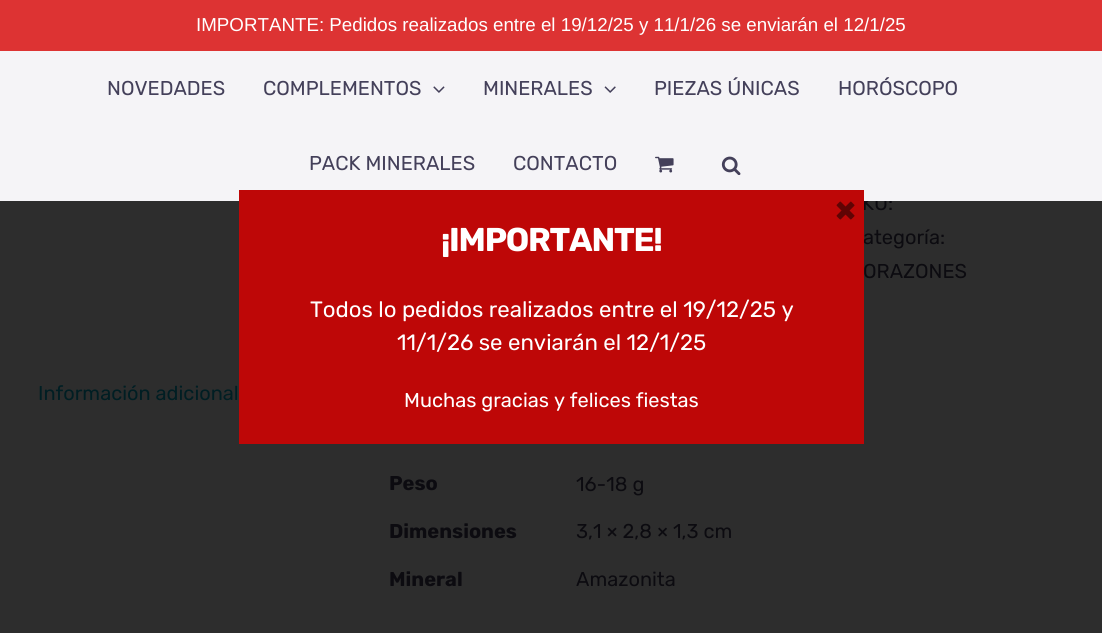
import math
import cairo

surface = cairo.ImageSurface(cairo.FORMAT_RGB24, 1102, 633)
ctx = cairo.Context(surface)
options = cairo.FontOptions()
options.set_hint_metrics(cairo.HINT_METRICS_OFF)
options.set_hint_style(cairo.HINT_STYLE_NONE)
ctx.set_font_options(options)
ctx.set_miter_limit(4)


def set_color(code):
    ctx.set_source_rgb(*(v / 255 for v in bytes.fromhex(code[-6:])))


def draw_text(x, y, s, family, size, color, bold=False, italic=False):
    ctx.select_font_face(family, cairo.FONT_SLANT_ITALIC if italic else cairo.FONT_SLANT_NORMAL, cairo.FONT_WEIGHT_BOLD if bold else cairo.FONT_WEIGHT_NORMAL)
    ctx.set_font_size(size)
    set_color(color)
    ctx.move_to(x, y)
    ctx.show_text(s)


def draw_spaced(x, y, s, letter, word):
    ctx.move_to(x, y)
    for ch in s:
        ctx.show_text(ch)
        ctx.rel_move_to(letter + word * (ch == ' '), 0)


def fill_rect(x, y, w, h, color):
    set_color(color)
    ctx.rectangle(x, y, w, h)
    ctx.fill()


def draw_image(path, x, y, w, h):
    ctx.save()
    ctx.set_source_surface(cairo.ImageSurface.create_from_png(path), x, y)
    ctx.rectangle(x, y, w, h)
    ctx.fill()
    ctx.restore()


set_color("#2d2d2d")
ctx.paint()
fill_rect(0, 0, 1102, 51, "#dd3333")
draw_text(196, 31, "IMPORTANTE: Pedidos realizados entre el 19/12/25 y 11/1/26 se enviarán el 12/1/25", "Liberation Sans", 18.75, "#ffffff")
draw_text(862, 210, "KU:", "Rubik", 20, "#0c0b10")
fill_rect(0, 51, 1102, 150, "#f5f4f7")
draw_text(107, 95, "NOVEDADES", "Rubik", 20, "#44405a")
draw_text(263, 95, "COMPLEMENTOS", "Rubik", 20, "#44405a")
draw_image("assets/img1.png", 433, 86, 12, 7)
draw_text(483, 95, "MINERALES", "Rubik", 20, "#44405a")
draw_image("assets/img2.png", 604, 86, 12, 7)
draw_text(654, 95, "PIEZAS ÚNICAS", "Rubik", 20, "#44405a")
draw_text(838, 95, "HORÓSCOPO", "Rubik", 20, "#44405a")
draw_text(309, 170, "PACK MINERALES", "Rubik", 20, "#44405a")
draw_text(513, 170, "CONTACTO", "Rubik", 20, "#44405a")
draw_image("assets/img3.png", 655, 156, 19, 17)
draw_image("assets/img4.png", 721, 156, 20, 19)
draw_text(863, 244, "ategoría:", "Rubik", 20, "#0c0b10")
draw_text(863, 278, "ORAZONES", "Rubik", 20, "#0c0b10")
draw_text(38, 400, "Información adicional", "Rubik", 20, "#001e23")
draw_text(389, 490, "Peso", "Rubik", 20, "#0c0b10", bold=True)
draw_text(576, 491, "16-18 g", "Rubik", 20, "#0c0b10")
draw_text(389, 538, "Dimensiones", "Rubik", 20, "#0c0b10", bold=True)
draw_text(576, 538, "3,1 × 2,8 × 1,3 cm", "Rubik", 20, "#0c0b10")
draw_text(389, 586, "Mineral", "Rubik", 20, "#0c0b10", bold=True)
draw_text(576, 586, "Amazonita", "Rubik", 20, "#0c0b10")
fill_rect(239, 190, 625, 254, "#be0707")
draw_text(835, 221, "×", "Rubik", 35, "#5f0404", bold=True)
ctx.set_font_size(33)
set_color("#ffffff")
draw_spaced(441, 251, "¡IMPORTANTE!", -1.25, 0)
draw_text(310, 317, "Todos lo pedidos realizados entre el 19/12/25 y", "Rubik", 22.2, "#ffffff")
draw_text(397, 350, "11/1/26 se enviarán el 12/1/25", "Rubik", 22.2, "#ffffff")
draw_text(404, 407, "Muchas gracias y felices fiestas", "Rubik", 20, "#ffffff")
surface.write_to_png("output.png")
